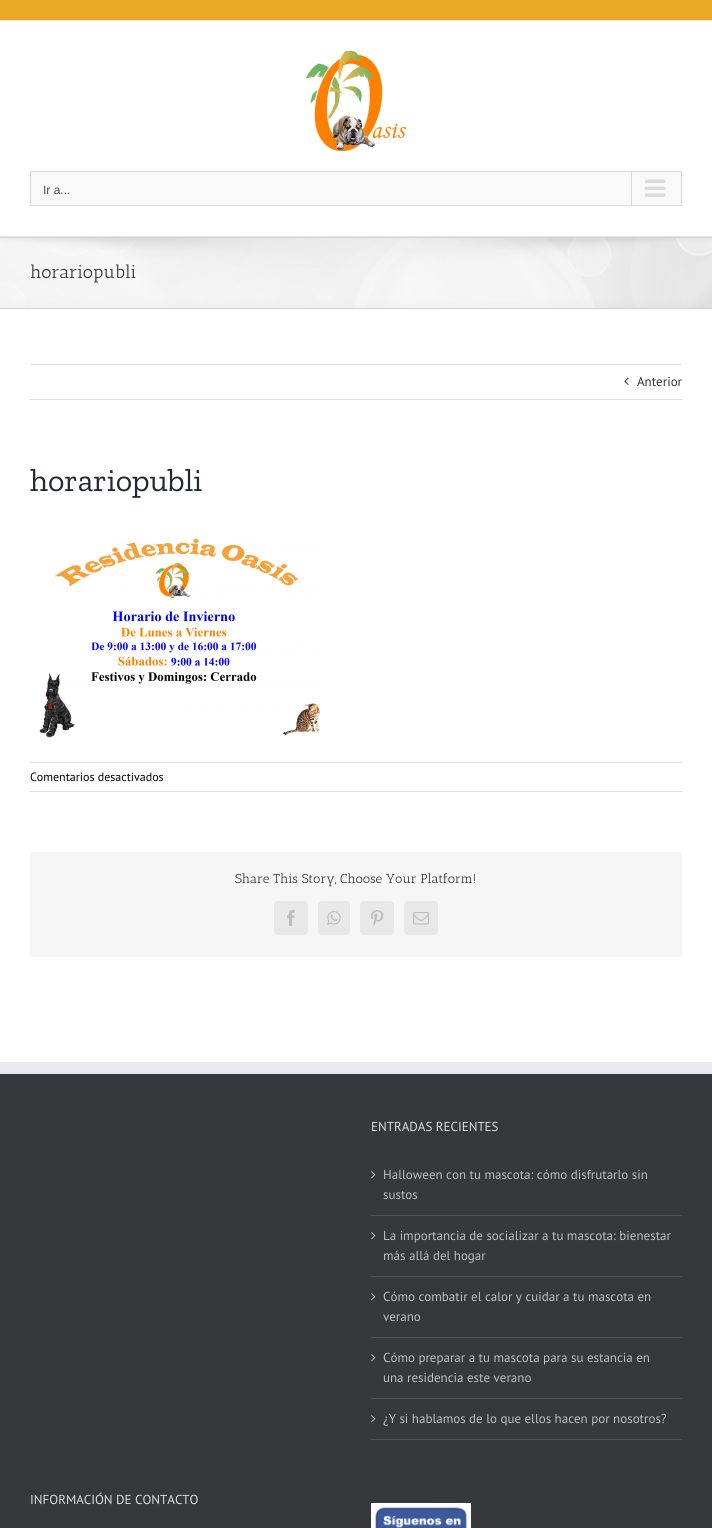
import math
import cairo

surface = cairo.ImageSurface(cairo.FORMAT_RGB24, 712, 1528)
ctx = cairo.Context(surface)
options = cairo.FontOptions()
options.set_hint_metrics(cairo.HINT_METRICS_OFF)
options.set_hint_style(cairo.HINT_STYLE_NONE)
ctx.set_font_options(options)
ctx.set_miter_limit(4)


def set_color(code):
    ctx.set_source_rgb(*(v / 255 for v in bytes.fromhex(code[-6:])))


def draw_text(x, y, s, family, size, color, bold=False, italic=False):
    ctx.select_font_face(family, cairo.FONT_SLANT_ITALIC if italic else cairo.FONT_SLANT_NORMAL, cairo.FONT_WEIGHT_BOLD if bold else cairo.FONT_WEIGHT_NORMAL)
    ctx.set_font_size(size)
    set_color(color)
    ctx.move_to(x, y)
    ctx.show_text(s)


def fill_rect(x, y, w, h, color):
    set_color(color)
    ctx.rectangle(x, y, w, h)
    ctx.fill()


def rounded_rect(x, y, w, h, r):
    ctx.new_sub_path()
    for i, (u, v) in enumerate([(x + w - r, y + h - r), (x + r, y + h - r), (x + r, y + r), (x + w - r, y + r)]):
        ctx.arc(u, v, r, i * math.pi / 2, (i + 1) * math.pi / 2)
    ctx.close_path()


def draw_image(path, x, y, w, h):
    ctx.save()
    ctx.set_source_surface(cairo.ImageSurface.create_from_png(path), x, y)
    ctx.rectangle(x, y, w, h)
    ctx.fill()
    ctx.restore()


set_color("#ffffff")
ctx.paint()
fill_rect(0, 0, 712, 20, "#e9a825")
fill_rect(0, 20, 712, 1, "#e5e5e5")
fill_rect(0, 236, 712, 1, "#e5e5e5")
draw_image("assets/img1.png", 306, 51, 100, 100)
set_color("#f9f9f9")
ctx.rectangle(30.5, 171.5, 651, 34)
ctx.fill_preserve()
set_color("#dadada")
ctx.set_line_width(1)
ctx.stroke()
draw_text(43, 194, "Ir a...", "Liberation Sans", 12, "#4a4e57")
fill_rect(631, 172, 1, 33, "#dadada")
draw_image("assets/img2.png", 645, 179, 21, 18)
fill_rect(0, 238, 712, 70, "#f6f6f6")
draw_image("assets/img3.png", 0, 238, 712, 70)
fill_rect(0, 237, 712, 1, "#d2d3d4")
fill_rect(0, 308, 712, 1, "#d2d3d4")
draw_text(30, 278, "horariopubli", "Antic Slab", 18, "#333333")
fill_rect(30, 364, 652, 1, "#e0dede")
fill_rect(30, 399, 652, 1, "#e0dede")
draw_image("assets/img4.png", 624, 377, 5, 8)
draw_text(637, 386, "Anterior", "PT Sans", 13, "#333333")
draw_text(30, 491, "horariopubli", "Zilla Slab", 32, "#212934")
draw_image("assets/img5.png", 39, 538, 282, 200)
fill_rect(30, 762, 652, 1, "#e0dede")
fill_rect(30, 791, 652, 1, "#e0dede")
draw_text(30, 781, "Comentarios desactivados", "PT Sans", 12, "#000000")
fill_rect(30, 852, 652, 105, "#f6f6f6")
draw_text(235, 883, "Share This Story, Choose Your Platform!", "Antic Slab", 13, "#333333")
set_color("#e8e8e8")
rounded_rect(274.5, 901.5, 33, 33, 3.5)
ctx.fill_preserve()
ctx.stroke()
draw_image("assets/img6.png", 287, 910, 8, 16)
rounded_rect(318.5, 901.5, 31, 33, 3.5)
ctx.fill_preserve()
ctx.stroke()
draw_image("assets/img7.png", 327, 911, 14, 14)
rounded_rect(360.5, 901.5, 33, 33, 3.5)
ctx.fill_preserve()
ctx.stroke()
draw_image("assets/img8.png", 371, 910, 13, 16)
rounded_rect(404.5, 901.5, 33, 33, 3.5)
ctx.fill_preserve()
ctx.stroke()
draw_image("assets/img9.png", 413, 912, 16, 13)
fill_rect(0, 1074, 712, 454, "#363839")
fill_rect(0, 1062, 712, 12, "#e9eaee")
draw_text(371, 1131, "ENTRADAS RECIENTES", "PT Sans", 13, "#dddddd")
fill_rect(371, 1215, 311, 1, "#505152")
draw_image("assets/img10.png", 371, 1171, 5, 8)
draw_text(383, 1179, "Halloween con tu mascota: cómo disfrutarlo sin", "PT Sans", 13, "#bfbfbf")
draw_text(383, 1199, "sustos", "PT Sans", 13, "#bfbfbf")
fill_rect(371, 1276, 311, 1, "#505152")
draw_image("assets/img10.png", 371, 1232, 5, 8)
draw_text(383, 1240, "La importancia de socializar a tu mascota: bienestar", "PT Sans", 13, "#bfbfbf")
draw_text(383, 1260, "más allá del hogar", "PT Sans", 13, "#bfbfbf")
fill_rect(371, 1337, 311, 1, "#505152")
draw_image("assets/img10.png", 371, 1293, 5, 8)
draw_text(383, 1301, "Cómo combatir el calor y cuidar a tu mascota en", "PT Sans", 13, "#bfbfbf")
draw_text(383, 1321, "verano", "PT Sans", 13, "#bfbfbf")
fill_rect(371, 1398, 311, 1, "#505152")
draw_image("assets/img10.png", 371, 1354, 5, 8)
draw_text(383, 1362, "Cómo preparar a tu mascota para su estancia en", "PT Sans", 13, "#bfbfbf")
draw_text(383, 1382, "una residencia este verano", "PT Sans", 13, "#bfbfbf")
fill_rect(371, 1439, 311, 1, "#505152")
draw_image("assets/img10.png", 371, 1415, 5, 8)
draw_text(383, 1423, "¿Y si hablamos de lo que ellos hacen por nosotros?", "PT Sans", 13, "#bfbfbf")
draw_text(30, 1504, "INFORMACIÓN DE CONTACTO", "PT Sans", 13, "#dddddd")
draw_image("assets/img11.png", 371, 1503, 100, 25)
surface.write_to_png("output.png")
